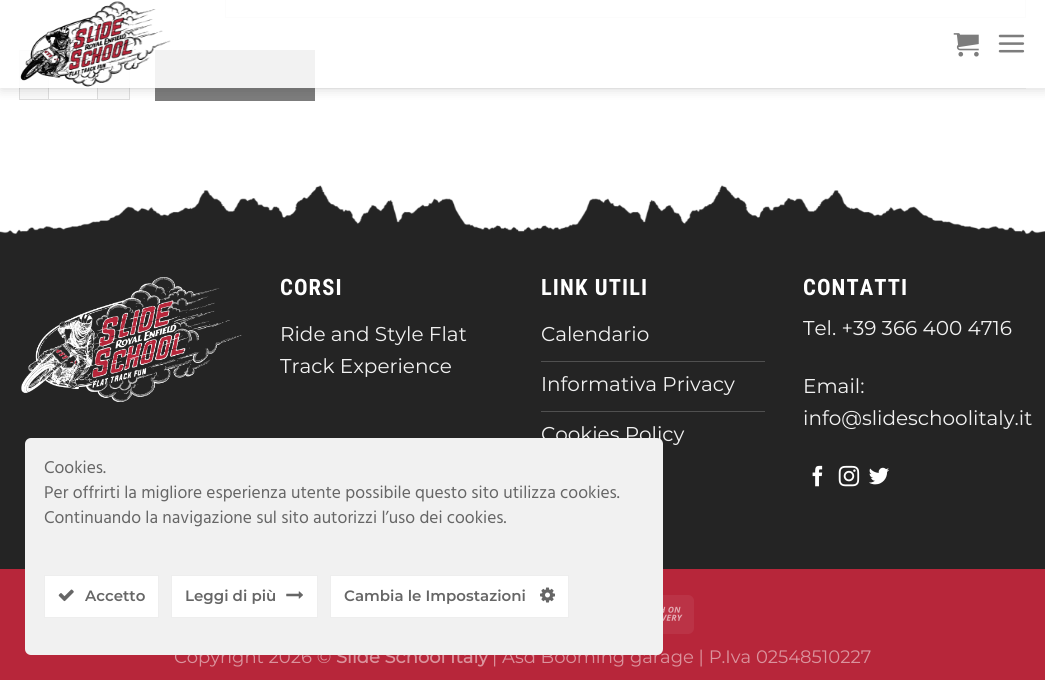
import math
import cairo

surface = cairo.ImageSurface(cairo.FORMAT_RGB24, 1045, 680)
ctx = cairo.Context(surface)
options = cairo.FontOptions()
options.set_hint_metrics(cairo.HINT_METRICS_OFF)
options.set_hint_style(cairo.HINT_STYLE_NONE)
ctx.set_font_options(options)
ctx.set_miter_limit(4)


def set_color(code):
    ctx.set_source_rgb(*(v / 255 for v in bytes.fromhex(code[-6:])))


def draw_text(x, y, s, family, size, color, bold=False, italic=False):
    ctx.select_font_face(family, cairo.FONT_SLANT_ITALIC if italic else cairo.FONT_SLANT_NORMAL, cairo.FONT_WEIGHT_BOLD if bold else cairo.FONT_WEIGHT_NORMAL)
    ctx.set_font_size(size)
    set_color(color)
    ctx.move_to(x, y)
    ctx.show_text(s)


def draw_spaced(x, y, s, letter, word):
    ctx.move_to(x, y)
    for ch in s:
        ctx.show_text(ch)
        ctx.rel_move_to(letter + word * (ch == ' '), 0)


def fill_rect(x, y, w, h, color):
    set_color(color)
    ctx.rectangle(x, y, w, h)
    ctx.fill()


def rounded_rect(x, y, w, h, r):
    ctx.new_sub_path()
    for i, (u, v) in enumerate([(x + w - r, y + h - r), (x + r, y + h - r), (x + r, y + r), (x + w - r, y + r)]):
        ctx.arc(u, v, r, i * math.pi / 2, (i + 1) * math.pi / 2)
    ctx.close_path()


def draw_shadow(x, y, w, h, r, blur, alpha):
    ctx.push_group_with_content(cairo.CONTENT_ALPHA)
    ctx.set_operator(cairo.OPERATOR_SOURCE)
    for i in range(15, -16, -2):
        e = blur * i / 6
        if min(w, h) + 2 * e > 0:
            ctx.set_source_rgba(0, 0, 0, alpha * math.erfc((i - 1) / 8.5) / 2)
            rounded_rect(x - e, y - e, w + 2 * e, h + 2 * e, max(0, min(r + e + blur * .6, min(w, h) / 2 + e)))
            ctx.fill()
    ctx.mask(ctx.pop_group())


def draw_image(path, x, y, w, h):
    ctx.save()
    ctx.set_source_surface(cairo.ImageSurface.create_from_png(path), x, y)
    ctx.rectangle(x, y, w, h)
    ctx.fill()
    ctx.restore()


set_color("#ffffff")
ctx.paint()
ctx.rectangle(225.5, -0.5, 800, 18)
set_color("#dddddd")
ctx.set_line_width(1)
ctx.stroke()
fill_rect(20, 51, 28, 48, "#f9f9f9")
fill_rect(19, 50, 29, 1, "#dddddd")
fill_rect(19, 99, 29, 1, "#dddddd")
fill_rect(19, 50, 1, 50, "#dddddd")
ctx.rectangle(48.5, 50.5, 49, 49)
ctx.stroke()
fill_rect(98, 51, 31, 48, "#f9f9f9")
fill_rect(98, 50, 32, 1, "#dddddd")
fill_rect(129, 50, 1, 50, "#dddddd")
fill_rect(98, 99, 32, 1, "#dddddd")
fill_rect(155, 50, 160, 51, "#7c7c7c")
ctx.save()
ctx.set_fill_rule(cairo.FILL_RULE_EVEN_ODD)
ctx.new_path()
ctx.move_to(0, 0)
ctx.line_to(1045, 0)
ctx.line_to(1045, 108)
ctx.line_to(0, 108)
ctx.close_path()
ctx.move_to(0, 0)
ctx.line_to(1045, 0)
ctx.line_to(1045, 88)
ctx.line_to(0, 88)
ctx.close_path()
ctx.clip()
set_color("#000000")
draw_shadow(1, 1, 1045, 88, 0, 6, 0.15)
ctx.restore()
ctx.set_source_rgba(1, 1, 1, 0.9)
ctx.rectangle(0, 0, 1045, 88)
ctx.fill()
draw_image("assets/img1.png", 20, 1, 151, 86)
draw_image("assets/img2.png", 953, 33, 26, 24)
draw_image("assets/img3.png", 998, 34, 27, 19)
ctx.set_source_rgba(0.467, 0.467, 0.467, 0.1)
ctx.rectangle(19, 88, 1007, 1)
ctx.fill()
draw_image("assets/img4.png", 0, 185, 1045, 51)
fill_rect(0, 236, 1045, 333, "#242424")
draw_image("assets/img5.png", 21, 277, 221, 125)
ctx.select_font_face("Roboto Condensed", cairo.FONT_SLANT_NORMAL, cairo.FONT_WEIGHT_BOLD)
ctx.set_font_size(22.5)
set_color("#ffffff")
draw_spaced(280, 295, "CORSI", 1.1, 0)
draw_text(280, 341, "Ride and Style Flat", "Montserrat Thin", 20, "#f1f1f1")
draw_text(280, 373, "Track Experience", "Montserrat Thin", 20, "#f1f1f1")
ctx.select_font_face("Roboto Condensed", cairo.FONT_SLANT_NORMAL, cairo.FONT_WEIGHT_BOLD)
ctx.set_font_size(22.5)
set_color("#ffffff")
draw_spaced(541, 295, "LINK UTILI", 1.1, 0)
fill_rect(541, 361, 224, 1, "#505050")
draw_text(541, 341, "Calendario", "Montserrat Thin", 20, "#f1f1f1")
fill_rect(541, 411, 224, 1, "#505050")
draw_text(541, 391, "Informativa Privacy", "Montserrat Thin", 20, "#f1f1f1")
draw_text(541, 441, "Cookies Policy", "Montserrat Thin", 20, "#f1f1f1")
ctx.select_font_face("Roboto Condensed", cairo.FONT_SLANT_NORMAL, cairo.FONT_WEIGHT_BOLD)
ctx.set_font_size(22.5)
set_color("#ffffff")
draw_spaced(803, 295, "CONTATTI", 1.1, 0)
draw_text(803, 335, "Tel. +39 366 400 4716", "Montserrat Thin", 20, "#f1f1f1")
draw_text(803, 393, "Email:", "Montserrat Thin", 20, "#f1f1f1")
draw_text(803, 425, "info@slideschoolitaly.it", "Montserrat Thin", 20, "#f1f1f1")
draw_image("assets/img6.png", 812, 465, 11, 22)
draw_image("assets/img7.png", 838, 465, 22, 22)
draw_image("assets/img8.png", 869, 467, 20, 18)
fill_rect(0, 569, 1045, 111, "#b7263a")
set_color("#bb3346")
rounded_rect(631, 595, 63, 39, 6)
ctx.fill()
draw_image("assets/img9.png", 663, 606, 20, 15)
draw_text(174, 663, "Copyright 2026 ©", "Montserrat Thin", 18, "#db939d")
draw_text(336, 663, "Slide School Italy", "Montserrat", 18, "#db939d", bold=True)
draw_text(492, 663, "| Asd Booming garage | P.Iva 02548510227", "Montserrat Thin", 18, "#db939d")
set_color("#f1f1f1")
rounded_rect(25, 438, 638, 217, 6)
ctx.fill()
draw_text(44, 473, "Cookies.", "Hind", 17.5, "#666666")
draw_text(44, 498, "Per offrirti la migliore esperienza utente possibile questo sito utilizza cookies.", "Hind", 17.5, "#666666")
draw_text(44, 523, "Continuando la navigazione sul sito autorizzi l’uso dei cookies.", "Hind", 17.5, "#666666")
set_color("#ffffff")
ctx.rectangle(44.5, 575.5, 114, 42)
ctx.fill_preserve()
set_color("#eeeeee")
ctx.stroke()
draw_image("assets/img10.png", 58, 589, 16, 13)
draw_text(85, 601, "Accetto", "Montserrat SemiBold", 15, "#666666")
set_color("#ffffff")
ctx.rectangle(171.5, 575.5, 146, 42)
ctx.fill_preserve()
set_color("#eeeeee")
ctx.stroke()
draw_text(185, 601, "Leggi di più", "Montserrat SemiBold", 15, "#666666")
draw_image("assets/img11.png", 286, 591, 17, 8)
set_color("#ffffff")
ctx.rectangle(330.5, 575.5, 238, 42)
ctx.fill_preserve()
set_color("#eeeeee")
ctx.stroke()
draw_text(344, 601, "Cambia le Impostazioni", "Montserrat SemiBold", 15, "#666666")
draw_image("assets/img12.png", 540, 587, 15, 16)
surface.write_to_png("output.png")
